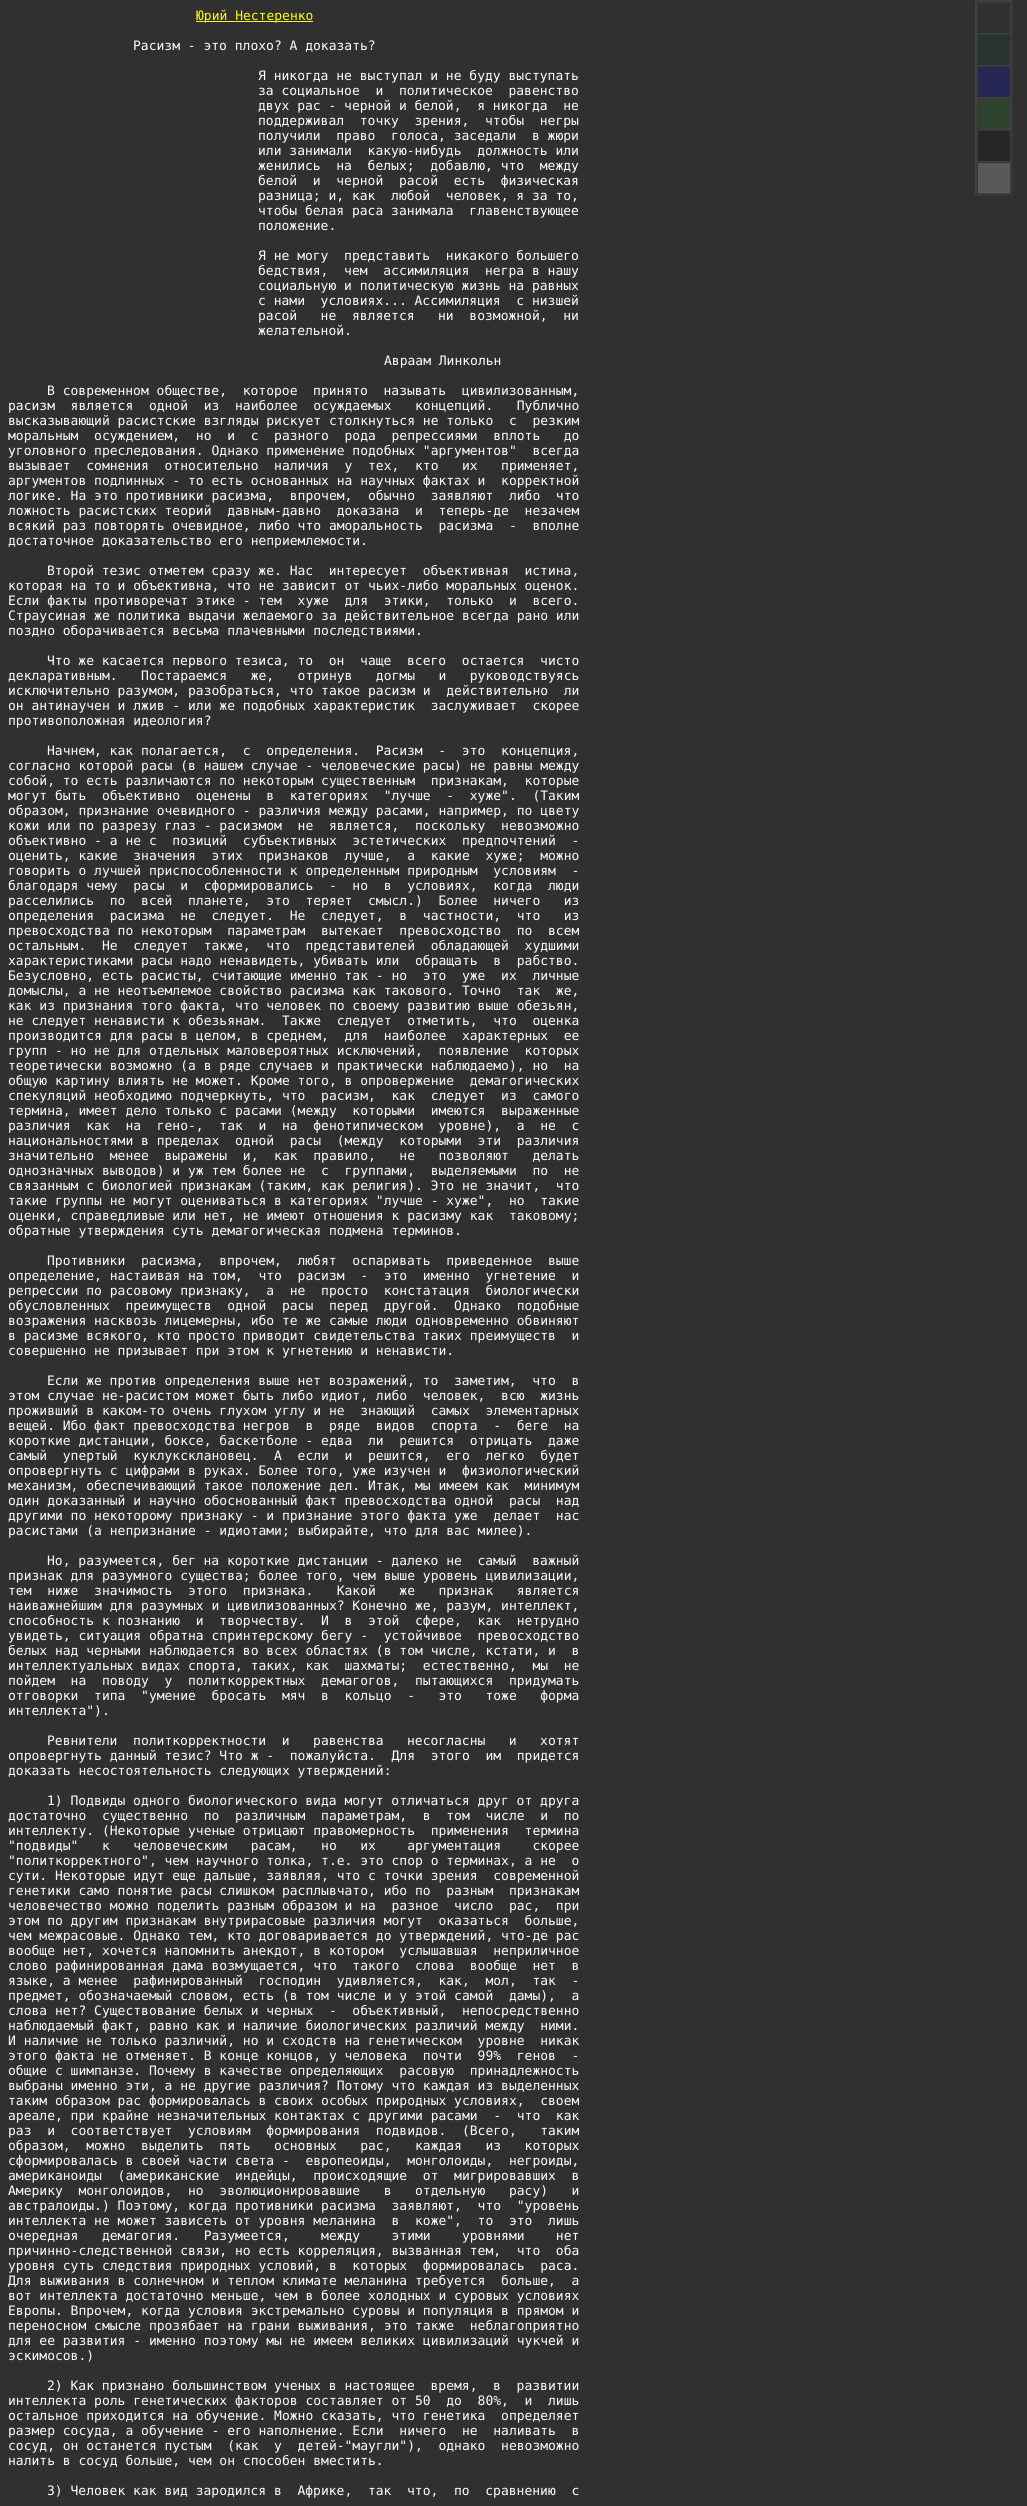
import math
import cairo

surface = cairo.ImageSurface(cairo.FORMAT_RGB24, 1027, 2506)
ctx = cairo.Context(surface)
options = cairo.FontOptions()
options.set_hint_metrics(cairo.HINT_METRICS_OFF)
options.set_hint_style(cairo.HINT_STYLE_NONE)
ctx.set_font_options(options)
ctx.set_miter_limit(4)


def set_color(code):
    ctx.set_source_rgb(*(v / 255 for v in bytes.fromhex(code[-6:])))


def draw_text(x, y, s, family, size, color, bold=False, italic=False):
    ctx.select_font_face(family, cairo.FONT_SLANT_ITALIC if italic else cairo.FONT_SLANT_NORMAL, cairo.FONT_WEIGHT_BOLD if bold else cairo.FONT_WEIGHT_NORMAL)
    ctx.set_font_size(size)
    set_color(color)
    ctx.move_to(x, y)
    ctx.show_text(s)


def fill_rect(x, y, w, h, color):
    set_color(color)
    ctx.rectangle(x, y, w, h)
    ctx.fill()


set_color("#303030")
ctx.paint()
fill_rect(196, 21, 117, 1, "#ffff00")
draw_text(196, 20, "Юрий Нестеренко", "DejaVu Sans Mono", 13, "#ffff00")
draw_text(133, 50, "Расизм - это плохо? А доказать?", "DejaVu Sans Mono", 13, "#ffffff")
draw_text(258, 80, "Я никогда не выступал и не буду выступать", "DejaVu Sans Mono", 13, "#ffffff")
draw_text(258, 95, "за социальное  и  политическое  равенство", "DejaVu Sans Mono", 13, "#ffffff")
draw_text(258, 110, "двух рас - черной и белой,  я никогда  не", "DejaVu Sans Mono", 13, "#ffffff")
draw_text(258, 125, "поддерживал  точку  зрения,  чтобы  негры", "DejaVu Sans Mono", 13, "#ffffff")
draw_text(258, 140, "получили  право  голоса, заседали  в жюри", "DejaVu Sans Mono", 13, "#ffffff")
draw_text(258, 155, "или занимали  какую-нибудь  должность или", "DejaVu Sans Mono", 13, "#ffffff")
draw_text(258, 170, "женились  на  белых;  добавлю, что  между", "DejaVu Sans Mono", 13, "#ffffff")
draw_text(258, 185, "белой  и  черной  расой  есть  физическая", "DejaVu Sans Mono", 13, "#ffffff")
draw_text(258, 200, "разница; и, как  любой  человек, я за то,", "DejaVu Sans Mono", 13, "#ffffff")
draw_text(258, 215, "чтобы белая раса занимала  главенствующее", "DejaVu Sans Mono", 13, "#ffffff")
draw_text(258, 230, "положение.", "DejaVu Sans Mono", 13, "#ffffff")
draw_text(258, 260, "Я не могу  представить  никакого большего", "DejaVu Sans Mono", 13, "#ffffff")
draw_text(258, 275, "бедствия,  чем  ассимиляция  негра в нашу", "DejaVu Sans Mono", 13, "#ffffff")
draw_text(258, 290, "социальную и политическую жизнь на равных", "DejaVu Sans Mono", 13, "#ffffff")
draw_text(258, 305, "с нами  условиях... Ассимиляция  с низшей", "DejaVu Sans Mono", 13, "#ffffff")
draw_text(258, 320, "расой   не  является   ни  возможной,  ни", "DejaVu Sans Mono", 13, "#ffffff")
draw_text(258, 335, "желательной.", "DejaVu Sans Mono", 13, "#ffffff")
draw_text(384, 365, "Авраам Линкольн", "DejaVu Sans Mono", 13, "#ffffff")
draw_text(47, 395, "В современном обществе,  которое  принято  называть  цивилизованным,", "DejaVu Sans Mono", 13, "#ffffff")
draw_text(8, 410, "расизм  является  одной  из  наиболее  осуждаемых   концепций.   Публично", "DejaVu Sans Mono", 13, "#ffffff")
draw_text(8, 425, "высказывающий расистские взгляды рискует столкнуться не только  с  резким", "DejaVu Sans Mono", 13, "#ffffff")
draw_text(8, 440, "моральным  осуждением,  но  и  с  разного  рода  репрессиями  вплоть   до", "DejaVu Sans Mono", 13, "#ffffff")
draw_text(8, 455, "уголовного преследования. Однако применение подобных \"аргументов\"  всегда", "DejaVu Sans Mono", 13, "#ffffff")
draw_text(8, 470, "вызывает  сомнения  относительно  наличия  у  тех,  кто   их   применяет,", "DejaVu Sans Mono", 13, "#ffffff")
draw_text(8, 485, "аргументов подлинных - то есть основанных на научных фактах и  корректной", "DejaVu Sans Mono", 13, "#ffffff")
draw_text(8, 500, "логике. На это противники расизма,  впрочем,  обычно  заявляют  либо  что", "DejaVu Sans Mono", 13, "#ffffff")
draw_text(8, 515, "ложность расистских теорий  давным-давно  доказана  и  теперь-де  незачем", "DejaVu Sans Mono", 13, "#ffffff")
draw_text(8, 530, "всякий раз повторять очевидное, либо что аморальность  расизма  -  вполне", "DejaVu Sans Mono", 13, "#ffffff")
draw_text(8, 545, "достаточное доказательство его неприемлемости.", "DejaVu Sans Mono", 13, "#ffffff")
draw_text(47, 575, "Второй тезис отметем сразу же. Нас  интересует  объективная  истина,", "DejaVu Sans Mono", 13, "#ffffff")
draw_text(8, 590, "которая на то и объективна, что не зависит от чьих-либо моральных оценок.", "DejaVu Sans Mono", 13, "#ffffff")
draw_text(8, 605, "Если факты противоречат этике - тем  хуже  для  этики,  только  и  всего.", "DejaVu Sans Mono", 13, "#ffffff")
draw_text(8, 620, "Страусиная же политика выдачи желаемого за действительное всегда рано или", "DejaVu Sans Mono", 13, "#ffffff")
draw_text(8, 635, "поздно оборачивается весьма плачевными последствиями.", "DejaVu Sans Mono", 13, "#ffffff")
draw_text(47, 665, "Что же касается первого тезиса, то  он  чаще  всего  остается  чисто", "DejaVu Sans Mono", 13, "#ffffff")
draw_text(8, 680, "декларативным.   Постараемся   же,   отринув   догмы   и   руководствуясь", "DejaVu Sans Mono", 13, "#ffffff")
draw_text(8, 695, "исключительно разумом, разобраться, что такое расизм и  действительно  ли", "DejaVu Sans Mono", 13, "#ffffff")
draw_text(8, 710, "он антинаучен и лжив - или же подобных характеристик  заслуживает  скорее", "DejaVu Sans Mono", 13, "#ffffff")
draw_text(8, 725, "противоположная идеология?", "DejaVu Sans Mono", 13, "#ffffff")
draw_text(47, 755, "Начнем, как полагается,  с  определения.  Расизм  -  это  концепция,", "DejaVu Sans Mono", 13, "#ffffff")
draw_text(8, 770, "согласно которой расы (в нашем случае - человеческие расы) не равны между", "DejaVu Sans Mono", 13, "#ffffff")
draw_text(8, 785, "собой, то есть различаются по некоторым существенным  признакам,  которые", "DejaVu Sans Mono", 13, "#ffffff")
draw_text(8, 800, "могут быть  объективно  оценены  в  категориях  \"лучше  -  хуже\".  (Таким", "DejaVu Sans Mono", 13, "#ffffff")
draw_text(8, 815, "образом, признание очевидного - различия между расами, например, по цвету", "DejaVu Sans Mono", 13, "#ffffff")
draw_text(8, 830, "кожи или по разрезу глаз - расизмом  не  является,  поскольку  невозможно", "DejaVu Sans Mono", 13, "#ffffff")
draw_text(8, 845, "объективно - а не с  позиций  субъективных  эстетических  предпочтений  -", "DejaVu Sans Mono", 13, "#ffffff")
draw_text(8, 860, "оценить, какие  значения  этих  признаков  лучше,  а  какие  хуже;  можно", "DejaVu Sans Mono", 13, "#ffffff")
draw_text(8, 875, "говорить о лучшей приспособленности к определенным природным  условиям  -", "DejaVu Sans Mono", 13, "#ffffff")
draw_text(8, 890, "благодаря чему  расы  и  сформировались  -  но  в  условиях,  когда  люди", "DejaVu Sans Mono", 13, "#ffffff")
draw_text(8, 905, "расселились  по  всей  планете,  это  теряет  смысл.)  Более  ничего   из", "DejaVu Sans Mono", 13, "#ffffff")
draw_text(8, 920, "определения  расизма  не  следует.  Не  следует,  в  частности,  что   из", "DejaVu Sans Mono", 13, "#ffffff")
draw_text(8, 935, "превосходства по некоторым  параметрам  вытекает  превосходство  по  всем", "DejaVu Sans Mono", 13, "#ffffff")
draw_text(8, 950, "остальным.  Не  следует  также,  что  представителей  обладающей  худшими", "DejaVu Sans Mono", 13, "#ffffff")
draw_text(8, 965, "характеристиками расы надо ненавидеть, убивать или  обращать  в  рабство.", "DejaVu Sans Mono", 13, "#ffffff")
draw_text(8, 980, "Безусловно, есть расисты, считающие именно так - но  это  уже  их  личные", "DejaVu Sans Mono", 13, "#ffffff")
draw_text(8, 995, "домыслы, а не неотъемлемое свойство расизма как такового. Точно  так  же,", "DejaVu Sans Mono", 13, "#ffffff")
draw_text(8, 1010, "как из признания того факта, что человек по своему развитию выше обезьян,", "DejaVu Sans Mono", 13, "#ffffff")
draw_text(8, 1025, "не следует ненависти к обезьянам.  Также  следует  отметить,  что  оценка", "DejaVu Sans Mono", 13, "#ffffff")
draw_text(8, 1040, "производится для расы в целом, в среднем,  для  наиболее  характерных  ее", "DejaVu Sans Mono", 13, "#ffffff")
draw_text(8, 1055, "групп - но не для отдельных маловероятных исключений,  появление  которых", "DejaVu Sans Mono", 13, "#ffffff")
draw_text(8, 1070, "теоретически возможно (а в ряде случаев и практически наблюдаемо), но  на", "DejaVu Sans Mono", 13, "#ffffff")
draw_text(8, 1085, "общую картину влиять не может. Кроме того, в опровержение  демагогических", "DejaVu Sans Mono", 13, "#ffffff")
draw_text(8, 1100, "спекуляций необходимо подчеркнуть, что  расизм,  как  следует  из  самого", "DejaVu Sans Mono", 13, "#ffffff")
draw_text(8, 1115, "термина, имеет дело только с расами (между  которыми  имеются  выраженные", "DejaVu Sans Mono", 13, "#ffffff")
draw_text(8, 1130, "различия  как  на  гено-,  так  и  на  фенотипическом  уровне),  а  не  с", "DejaVu Sans Mono", 13, "#ffffff")
draw_text(8, 1145, "национальностями в пределах  одной  расы  (между  которыми  эти  различия", "DejaVu Sans Mono", 13, "#ffffff")
draw_text(8, 1160, "значительно  менее  выражены  и,  как  правило,   не   позволяют   делать", "DejaVu Sans Mono", 13, "#ffffff")
draw_text(8, 1175, "однозначных выводов) и уж тем более не  с  группами,  выделяемыми  по  не", "DejaVu Sans Mono", 13, "#ffffff")
draw_text(8, 1190, "связанным с биологией признакам (таким, как религия). Это не значит,  что", "DejaVu Sans Mono", 13, "#ffffff")
draw_text(8, 1205, "такие группы не могут оцениваться в категориях \"лучше - хуже\",  но  такие", "DejaVu Sans Mono", 13, "#ffffff")
draw_text(8, 1220, "оценки, справедливые или нет, не имеют отношения к расизму как  таковому;", "DejaVu Sans Mono", 13, "#ffffff")
draw_text(8, 1235, "обратные утверждения суть демагогическая подмена терминов.", "DejaVu Sans Mono", 13, "#ffffff")
draw_text(47, 1265, "Противники  расизма,  впрочем,  любят  оспаривать  приведенное  выше", "DejaVu Sans Mono", 13, "#ffffff")
draw_text(8, 1280, "определение, настаивая на том,  что  расизм  -  это  именно  угнетение  и", "DejaVu Sans Mono", 13, "#ffffff")
draw_text(8, 1295, "репрессии по расовому признаку,  а  не  просто  констатация  биологически", "DejaVu Sans Mono", 13, "#ffffff")
draw_text(8, 1310, "обусловленных  преимуществ  одной  расы  перед  другой.  Однако  подобные", "DejaVu Sans Mono", 13, "#ffffff")
draw_text(8, 1325, "возражения насквозь лицемерны, ибо те же самые люди одновременно обвиняют", "DejaVu Sans Mono", 13, "#ffffff")
draw_text(8, 1340, "в расизме всякого, кто просто приводит свидетельства таких преимуществ  и", "DejaVu Sans Mono", 13, "#ffffff")
draw_text(8, 1355, "совершенно не призывает при этом к угнетению и ненависти.", "DejaVu Sans Mono", 13, "#ffffff")
draw_text(47, 1385, "Если же против определения выше нет возражений, то  заметим,  что  в", "DejaVu Sans Mono", 13, "#ffffff")
draw_text(8, 1400, "этом случае не-расистом может быть либо идиот, либо  человек,  всю  жизнь", "DejaVu Sans Mono", 13, "#ffffff")
draw_text(8, 1415, "проживший в каком-то очень глухом углу и не  знающий  самых  элементарных", "DejaVu Sans Mono", 13, "#ffffff")
draw_text(8, 1430, "вещей. Ибо факт превосходства негров  в  ряде  видов  спорта  -  беге  на", "DejaVu Sans Mono", 13, "#ffffff")
draw_text(8, 1445, "короткие дистанции, боксе, баскетболе - едва  ли  решится  отрицать  даже", "DejaVu Sans Mono", 13, "#ffffff")
draw_text(8, 1460, "самый  упертый  куклуксклановец.  А  если  и  решится,  его  легко  будет", "DejaVu Sans Mono", 13, "#ffffff")
draw_text(8, 1475, "опровергнуть с цифрами в руках. Более того, уже изучен и  физиологический", "DejaVu Sans Mono", 13, "#ffffff")
draw_text(8, 1490, "механизм, обеспечивающий такое положение дел. Итак, мы имеем как  минимум", "DejaVu Sans Mono", 13, "#ffffff")
draw_text(8, 1505, "один доказанный и научно обоснованный факт превосходства одной  расы  над", "DejaVu Sans Mono", 13, "#ffffff")
draw_text(8, 1520, "другими по некоторому признаку - и признание этого факта уже  делает  нас", "DejaVu Sans Mono", 13, "#ffffff")
draw_text(8, 1535, "расистами (а непризнание - идиотами; выбирайте, что для вас милее).", "DejaVu Sans Mono", 13, "#ffffff")
draw_text(47, 1565, "Но, разумеется, бег на короткие дистанции - далеко не  самый  важный", "DejaVu Sans Mono", 13, "#ffffff")
draw_text(8, 1580, "признак для разумного существа; более того, чем выше уровень цивилизации,", "DejaVu Sans Mono", 13, "#ffffff")
draw_text(8, 1595, "тем  ниже  значимость  этого  признака.   Какой   же   признак   является", "DejaVu Sans Mono", 13, "#ffffff")
draw_text(8, 1610, "наиважнейшим для разумных и цивилизованных? Конечно же, разум, интеллект,", "DejaVu Sans Mono", 13, "#ffffff")
draw_text(8, 1625, "способность к познанию  и  творчеству.  И  в  этой  сфере,  как  нетрудно", "DejaVu Sans Mono", 13, "#ffffff")
draw_text(8, 1640, "увидеть, ситуация обратна спринтерскому бегу -  устойчивое  превосходство", "DejaVu Sans Mono", 13, "#ffffff")
draw_text(8, 1655, "белых над черными наблюдается во всех областях (в том числе, кстати, и  в", "DejaVu Sans Mono", 13, "#ffffff")
draw_text(8, 1670, "интеллектуальных видах спорта, таких, как  шахматы;  естественно,  мы  не", "DejaVu Sans Mono", 13, "#ffffff")
draw_text(8, 1685, "пойдем  на  поводу  у  политкорректных  демагогов,  пытающихся  придумать", "DejaVu Sans Mono", 13, "#ffffff")
draw_text(8, 1700, "отговорки  типа  \"умение  бросать  мяч  в  кольцо  -   это   тоже   форма", "DejaVu Sans Mono", 13, "#ffffff")
draw_text(8, 1715, "интеллекта\").", "DejaVu Sans Mono", 13, "#ffffff")
draw_text(47, 1745, "Ревнители  политкорректности  и   равенства   несогласны   и   хотят", "DejaVu Sans Mono", 13, "#ffffff")
draw_text(8, 1760, "опровергнуть данный тезис? Что ж -  пожалуйста.  Для  этого  им  придется", "DejaVu Sans Mono", 13, "#ffffff")
draw_text(8, 1775, "доказать несостоятельность следующих утверждений:", "DejaVu Sans Mono", 13, "#ffffff")
draw_text(47, 1805, "1) Подвиды одного биологического вида могут отличаться друг от друга", "DejaVu Sans Mono", 13, "#ffffff")
draw_text(8, 1820, "достаточно  существенно  по  различным  параметрам,  в  том  числе  и  по", "DejaVu Sans Mono", 13, "#ffffff")
draw_text(8, 1835, "интеллекту. (Некоторые ученые отрицают правомерность  применения  термина", "DejaVu Sans Mono", 13, "#ffffff")
draw_text(8, 1850, "\"подвиды\"   к   человеческим   расам,   но   их    аргументация    скорее", "DejaVu Sans Mono", 13, "#ffffff")
draw_text(8, 1865, "\"политкорректного\", чем научного толка, т.е. это спор о терминах, а не  о", "DejaVu Sans Mono", 13, "#ffffff")
draw_text(8, 1880, "сути. Некоторые идут еще дальше, заявляя, что с точки зрения  современной", "DejaVu Sans Mono", 13, "#ffffff")
draw_text(8, 1895, "генетики само понятие расы слишком расплывчато, ибо по  разным  признакам", "DejaVu Sans Mono", 13, "#ffffff")
draw_text(8, 1910, "человечество можно поделить разным образом и на  разное  число  рас,  при", "DejaVu Sans Mono", 13, "#ffffff")
draw_text(8, 1925, "этом по другим признакам внутрирасовые различия могут  оказаться  больше,", "DejaVu Sans Mono", 13, "#ffffff")
draw_text(8, 1940, "чем межрасовые. Однако тем, кто договаривается до утверждений, что-де рас", "DejaVu Sans Mono", 13, "#ffffff")
draw_text(8, 1955, "вообще нет, хочется напомнить анекдот, в котором  услышавшая  неприличное", "DejaVu Sans Mono", 13, "#ffffff")
draw_text(8, 1970, "слово рафинированная дама возмущается, что  такого  слова  вообще  нет  в", "DejaVu Sans Mono", 13, "#ffffff")
draw_text(8, 1985, "языке, а менее  рафинированный  господин  удивляется,  как,  мол,  так  -", "DejaVu Sans Mono", 13, "#ffffff")
draw_text(8, 2000, "предмет, обозначаемый словом, есть (в том числе и у этой самой  дамы),  а", "DejaVu Sans Mono", 13, "#ffffff")
draw_text(8, 2015, "слова нет? Существование белых и черных  -  объективный,  непосредственно", "DejaVu Sans Mono", 13, "#ffffff")
draw_text(8, 2030, "наблюдаемый факт, равно как и наличие биологических различий между  ними.", "DejaVu Sans Mono", 13, "#ffffff")
draw_text(8, 2045, "И наличие не только различий, но и сходств на генетическом  уровне  никак", "DejaVu Sans Mono", 13, "#ffffff")
draw_text(8, 2060, "этого факта не отменяет. В конце концов, у человека  почти  99%  генов  -", "DejaVu Sans Mono", 13, "#ffffff")
draw_text(8, 2075, "общие с шимпанзе. Почему в качестве определяющих  расовую  принадлежность", "DejaVu Sans Mono", 13, "#ffffff")
draw_text(8, 2090, "выбраны именно эти, а не другие различия? Потому что каждая из выделенных", "DejaVu Sans Mono", 13, "#ffffff")
draw_text(8, 2105, "таким образом рас формировалась в своих особых природных условиях,  своем", "DejaVu Sans Mono", 13, "#ffffff")
draw_text(8, 2120, "ареале, при крайне незначительных контактах с другими расами  -  что  как", "DejaVu Sans Mono", 13, "#ffffff")
draw_text(8, 2135, "раз  и  соответствует  условиям  формирования  подвидов.  (Всего,   таким", "DejaVu Sans Mono", 13, "#ffffff")
draw_text(8, 2150, "образом,  можно  выделить  пять   основных   рас,   каждая   из   которых", "DejaVu Sans Mono", 13, "#ffffff")
draw_text(8, 2165, "сформировалась в своей части света -  европеоиды,  монголоиды,  негроиды,", "DejaVu Sans Mono", 13, "#ffffff")
draw_text(8, 2180, "американоиды  (американские  индейцы,  происходящие  от  мигрировавших  в", "DejaVu Sans Mono", 13, "#ffffff")
draw_text(8, 2195, "Америку  монголоидов,  но  эволюционировавшие   в   отдельную   расу)   и", "DejaVu Sans Mono", 13, "#ffffff")
draw_text(8, 2210, "австралоиды.) Поэтому, когда противники расизма  заявляют,  что  \"уровень", "DejaVu Sans Mono", 13, "#ffffff")
draw_text(8, 2225, "интеллекта не может зависеть от уровня меланина  в  коже\",  то  это  лишь", "DejaVu Sans Mono", 13, "#ffffff")
draw_text(8, 2240, "очередная   демагогия.   Разумеется,    между    этими    уровнями    нет", "DejaVu Sans Mono", 13, "#ffffff")
draw_text(8, 2255, "причинно-следственной связи, но есть корреляция, вызванная тем,  что  оба", "DejaVu Sans Mono", 13, "#ffffff")
draw_text(8, 2270, "уровня суть следствия природных условий, в  которых  формировалась  раса.", "DejaVu Sans Mono", 13, "#ffffff")
draw_text(8, 2285, "Для выживания в солнечном и теплом климате меланина требуется  больше,  а", "DejaVu Sans Mono", 13, "#ffffff")
draw_text(8, 2300, "вот интеллекта достаточно меньше, чем в более холодных и суровых условиях", "DejaVu Sans Mono", 13, "#ffffff")
draw_text(8, 2315, "Европы. Впрочем, когда условия экстремально суровы и популяция в прямом и", "DejaVu Sans Mono", 13, "#ffffff")
draw_text(8, 2330, "переносном смысле прозябает на грани выживания, это также  неблагоприятно", "DejaVu Sans Mono", 13, "#ffffff")
draw_text(8, 2345, "для ее развития - именно поэтому мы не имеем великих цивилизаций чукчей и", "DejaVu Sans Mono", 13, "#ffffff")
draw_text(8, 2360, "эскимосов.)", "DejaVu Sans Mono", 13, "#ffffff")
draw_text(47, 2390, "2) Как признано большинством ученых в настоящее  время,  в  развитии", "DejaVu Sans Mono", 13, "#ffffff")
draw_text(8, 2405, "интеллекта роль генетических факторов составляет от 50  до  80%,  и  лишь", "DejaVu Sans Mono", 13, "#ffffff")
draw_text(8, 2420, "остальное приходится на обучение. Можно сказать, что генетика  определяет", "DejaVu Sans Mono", 13, "#ffffff")
draw_text(8, 2435, "размер сосуда, а обучение - его наполнение. Если  ничего  не  наливать  в", "DejaVu Sans Mono", 13, "#ffffff")
draw_text(8, 2450, "сосуд, он останется пустым  (как  у  детей-\"маугли\"),  однако  невозможно", "DejaVu Sans Mono", 13, "#ffffff")
draw_text(8, 2465, "налить в сосуд больше, чем он способен вместить.", "DejaVu Sans Mono", 13, "#ffffff")
draw_text(47, 2495, "3) Человек как вид зародился в  Африке,  так  что,  по  сравнению  с", "DejaVu Sans Mono", 13, "#ffffff")
set_color("#404040")
ctx.new_path()
ctx.move_to(975, 0)
ctx.line_to(1013, 0)
ctx.line_to(1011, 2)
ctx.line_to(977, 2)
ctx.close_path()
ctx.fill()
set_color("#373737")
ctx.new_path()
ctx.move_to(1013, 0)
ctx.line_to(1013, 196)
ctx.line_to(1011, 194)
ctx.line_to(1011, 2)
ctx.close_path()
ctx.fill()
ctx.new_path()
ctx.move_to(1013, 196)
ctx.line_to(975, 196)
ctx.line_to(977, 194)
ctx.line_to(1011, 194)
ctx.close_path()
ctx.fill()
set_color("#404040")
ctx.new_path()
ctx.move_to(975, 196)
ctx.line_to(975, 0)
ctx.line_to(977, 2)
ctx.line_to(977, 194)
ctx.close_path()
ctx.fill()
fill_rect(977, 2, 34, 1, "#373737")
fill_rect(1010, 2, 1, 32, "#404040")
fill_rect(977, 33, 34, 1, "#404040")
fill_rect(977, 2, 1, 32, "#373737")
fill_rect(978, 35, 32, 30, "#263331")
fill_rect(977, 34, 34, 1, "#373737")
fill_rect(1010, 34, 1, 32, "#404040")
fill_rect(977, 65, 34, 1, "#404040")
fill_rect(977, 34, 1, 32, "#373737")
fill_rect(978, 67, 32, 30, "#272756")
fill_rect(977, 66, 34, 1, "#373737")
fill_rect(1010, 66, 1, 32, "#404040")
fill_rect(977, 97, 34, 1, "#404040")
fill_rect(977, 66, 1, 32, "#373737")
fill_rect(978, 99, 32, 30, "#2d432d")
fill_rect(977, 98, 34, 1, "#373737")
fill_rect(1010, 98, 1, 32, "#404040")
fill_rect(977, 129, 34, 1, "#404040")
fill_rect(977, 98, 1, 32, "#373737")
fill_rect(978, 131, 32, 30, "#262626")
fill_rect(977, 130, 34, 1, "#373737")
fill_rect(1010, 130, 1, 32, "#404040")
fill_rect(977, 161, 34, 1, "#404040")
fill_rect(977, 130, 1, 32, "#373737")
fill_rect(978, 163, 32, 30, "#595959")
fill_rect(977, 162, 34, 1, "#373737")
fill_rect(1010, 162, 1, 32, "#404040")
fill_rect(977, 193, 34, 1, "#404040")
fill_rect(977, 162, 1, 32, "#373737")
surface.write_to_png("output.png")
